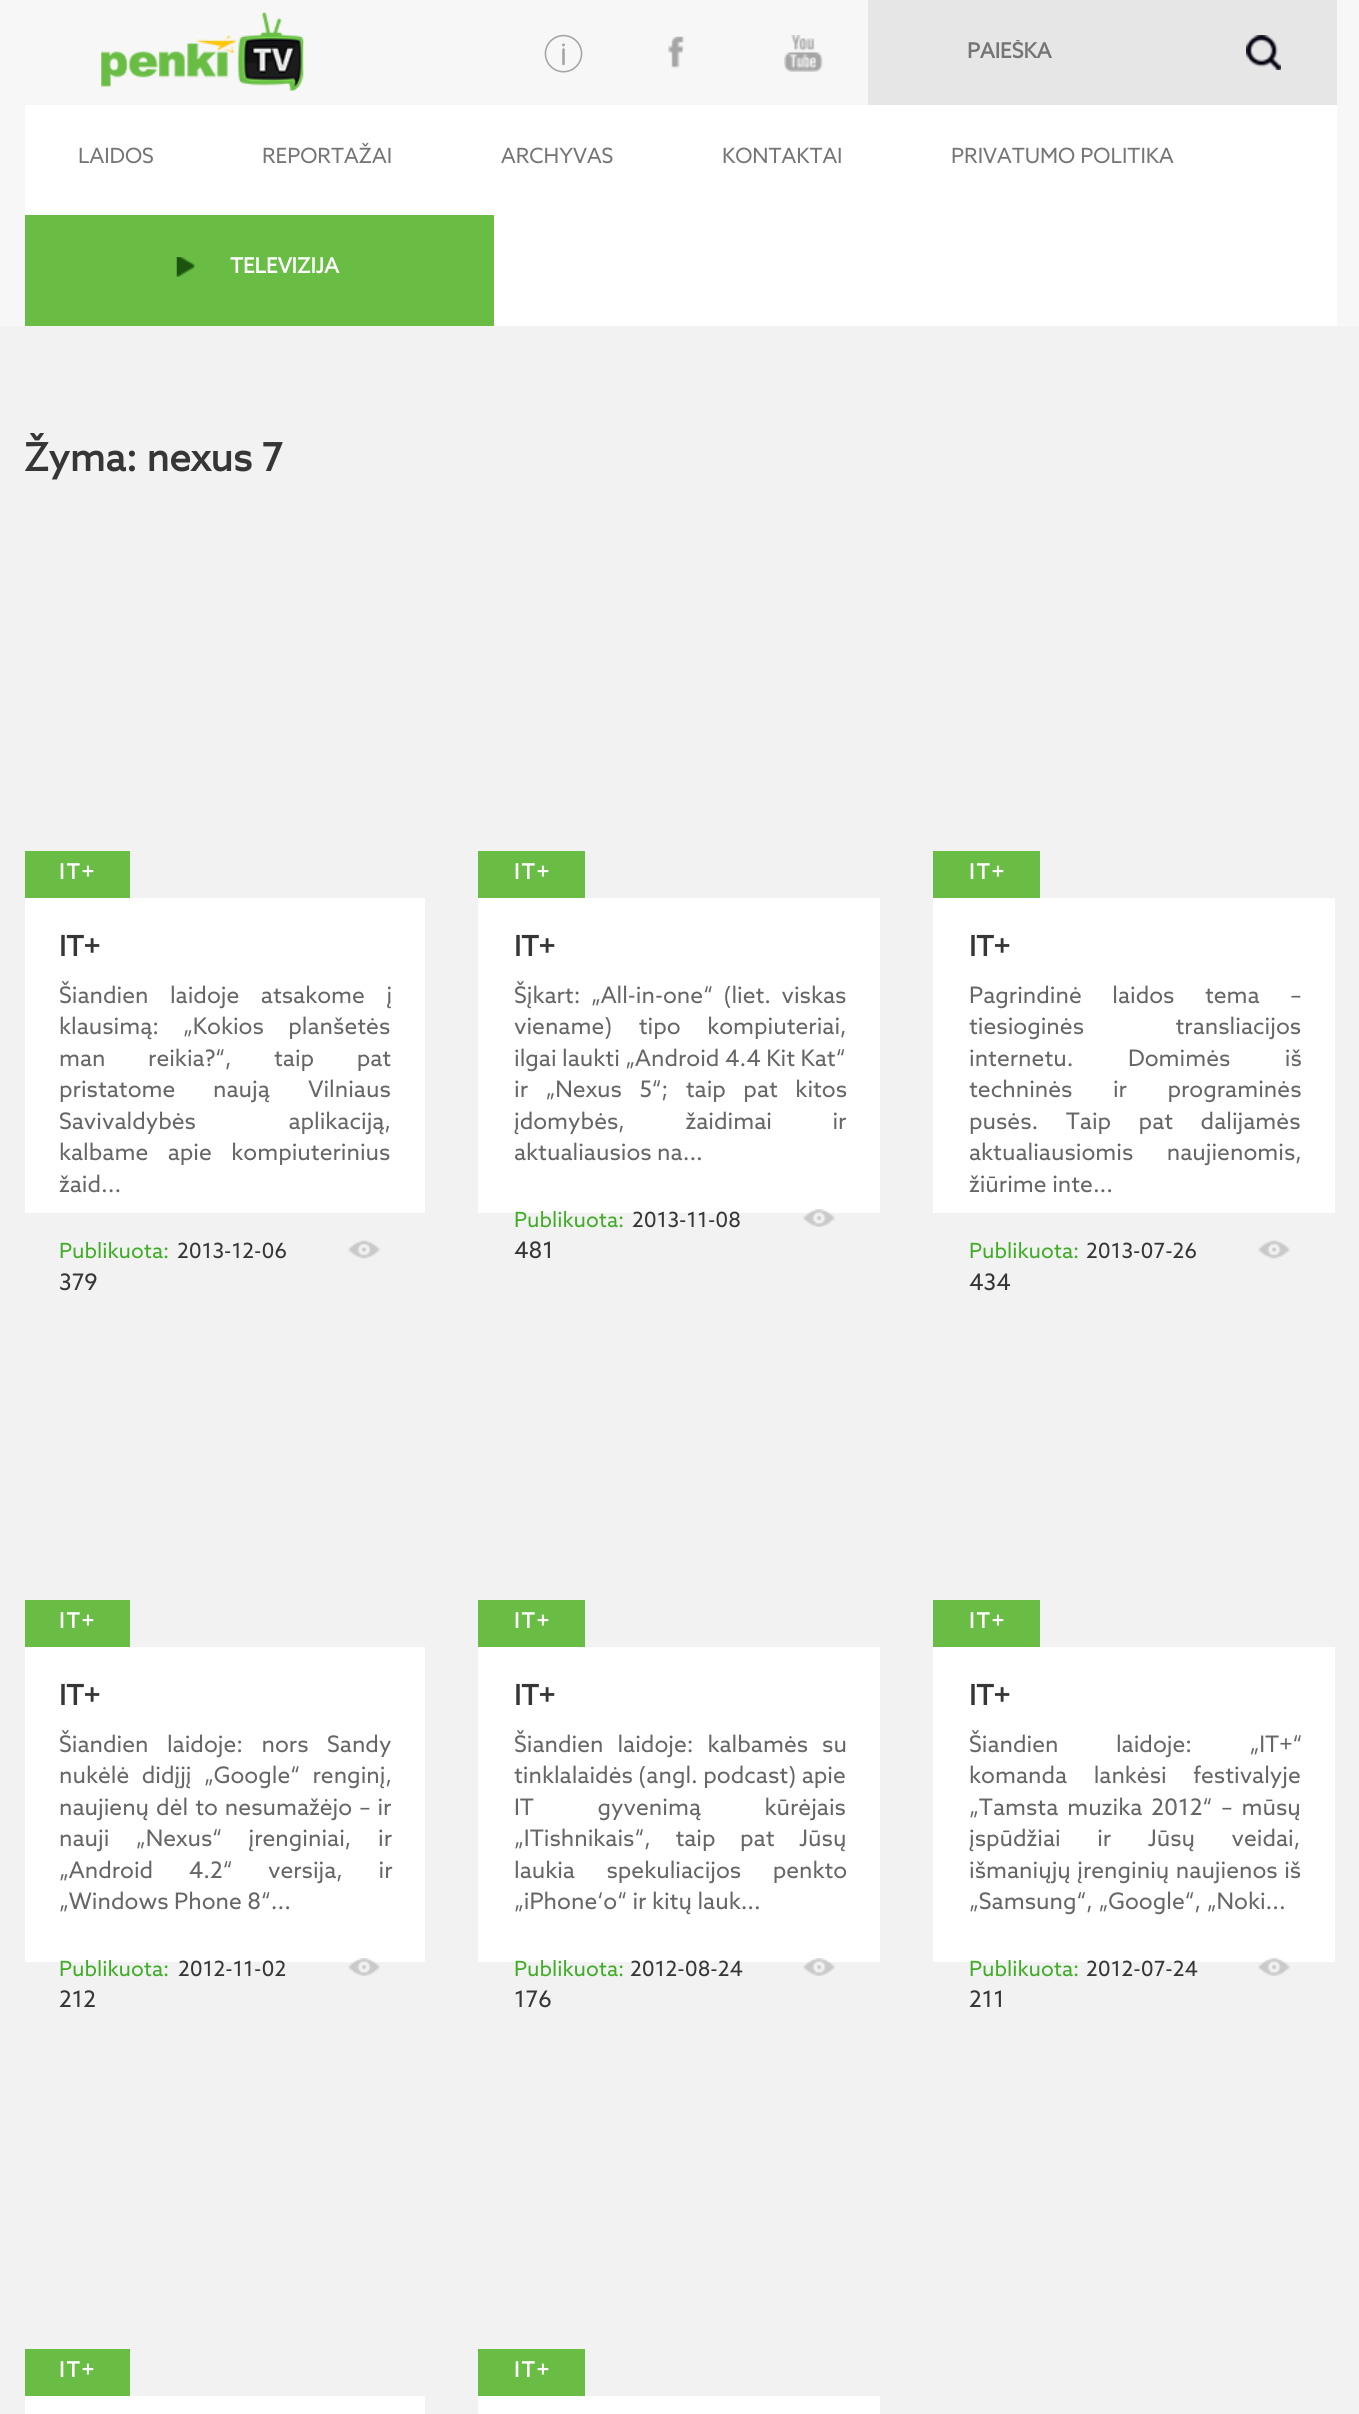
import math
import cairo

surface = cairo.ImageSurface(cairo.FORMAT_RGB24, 1359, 2414)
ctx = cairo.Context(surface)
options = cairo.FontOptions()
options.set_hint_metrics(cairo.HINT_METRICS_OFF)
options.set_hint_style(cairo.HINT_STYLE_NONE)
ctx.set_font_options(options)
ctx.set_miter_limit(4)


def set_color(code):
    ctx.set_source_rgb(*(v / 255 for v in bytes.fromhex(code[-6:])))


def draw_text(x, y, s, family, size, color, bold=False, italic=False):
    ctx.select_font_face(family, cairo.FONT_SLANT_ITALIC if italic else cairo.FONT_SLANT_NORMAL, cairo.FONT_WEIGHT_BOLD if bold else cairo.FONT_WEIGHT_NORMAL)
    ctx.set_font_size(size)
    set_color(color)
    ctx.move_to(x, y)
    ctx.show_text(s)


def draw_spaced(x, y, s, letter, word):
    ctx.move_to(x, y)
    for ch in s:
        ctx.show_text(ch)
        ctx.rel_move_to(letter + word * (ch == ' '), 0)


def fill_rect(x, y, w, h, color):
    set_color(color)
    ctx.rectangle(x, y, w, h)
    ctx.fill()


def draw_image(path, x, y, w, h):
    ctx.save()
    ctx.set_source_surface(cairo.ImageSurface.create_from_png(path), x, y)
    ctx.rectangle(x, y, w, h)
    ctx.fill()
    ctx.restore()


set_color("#f2f2f2")
ctx.paint()
fill_rect(0, 0, 1359, 326, "#f7f7f7")
draw_image("assets/img1.png", 101, 12, 203, 79)
draw_image("assets/img2.png", 544, 34, 39, 39)
draw_image("assets/img3.png", 668, 36, 17, 33)
draw_image("assets/img4.png", 784, 35, 39, 37)
fill_rect(868, 0, 469, 105, "#e7e6e6")
ctx.save()
ctx.rectangle(968, 40, 273, 25)
ctx.clip()
draw_text(967, 58, "PAIEŠKA", "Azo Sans", 21, "#757575", bold=True)
ctx.restore()
draw_image("assets/img5.png", 1246, 35, 35, 35)
fill_rect(25, 105, 1312, 221, "#ffffff")
draw_text(78, 163, "LAIDOS", "Azo Sans", 21, "#757575")
draw_text(262, 163, "REPORTAŽAI", "Azo Sans", 21, "#757575")
draw_text(501, 163, "ARCHYVAS", "Azo Sans", 21, "#757575")
draw_text(722, 163, "KONTAKTAI", "Azo Sans", 21, "#757575")
draw_text(951, 163, "PRIVATUMO POLITIKA", "Azo Sans", 21, "#757575")
fill_rect(25, 215, 469, 111, "#69bd45")
draw_image("assets/img6.png", 176, 257, 19, 20)
draw_text(230, 273, "TELEVIZIJA", "Azo Sans", 21, "#ffffff", bold=True)
draw_text(24, 471, "Žyma: nexus 7", "Azo Sans", 38.5, "#363636", bold=True)
fill_rect(25, 851, 105, 47, "#69bd45")
ctx.set_font_size(21)
set_color("#ffffff")
draw_spaced(59, 879, "IT+", 2, 0)
fill_rect(25, 898, 400, 315, "#ffffff")
draw_text(59, 956, "IT+", "Azo Sans", 28, "#363636", bold=True)
ctx.select_font_face("Azo Sans")
ctx.set_font_size(22.75)
set_color("#666666")
draw_spaced(59, 1003, "Šiandien laidoje atsakome į", 0, 16)
draw_text(59, 1034, "klausimą:", "Azo Sans", 22.75, "#666666")
draw_spaced(183, 1034, "„Kokios planšetės", 0, 19)
draw_spaced(59, 1066, "man reikia?“,", 0, 37)
draw_spaced(274, 1066, "taip pat", 0, 37)
draw_text(59, 1097, "pristatome", "Azo Sans", 22.75, "#666666")
draw_spaced(213, 1097, "naują Vilniaus", 0, 33)
draw_spaced(59, 1129, "Savivaldybės aplikaciją,", 0, 87)
draw_spaced(59, 1160, "kalbame apie kompiuterinius", 0, 14)
draw_text(59, 1192, "žaid...", "Azo Sans", 22.75, "#666666")
draw_text(59, 1258, "Publikuota:", "Azo Sans", 21, "#41ac27")
draw_text(177, 1258, "2013-12-06", "Azo Sans", 21, "#363636")
draw_image("assets/img7.png", 348, 1240, 32, 19)
draw_text(59, 1290, "379", "Azo Sans", 22.75, "#363636")
fill_rect(478, 851, 107, 47, "#69bd45")
ctx.select_font_face("Azo Sans", cairo.FONT_SLANT_NORMAL, cairo.FONT_WEIGHT_BOLD)
ctx.set_font_size(21)
set_color("#ffffff")
draw_spaced(514, 879, "IT+", 2, 0)
fill_rect(478, 898, 402, 315, "#ffffff")
draw_text(514, 956, "IT+", "Azo Sans", 28, "#363636", bold=True)
ctx.select_font_face("Azo Sans")
ctx.set_font_size(22.75)
set_color("#666666")
draw_spaced(514, 1003, "Šįkart: „All-in-one“ (liet. viskas", 0, 5)
draw_spaced(514, 1034, "viename) tipo kompiuteriai,", 0, 21)
draw_text(514, 1066, "ilgai laukti „Android 4.4 Kit Kat“", "Azo Sans", 22.75, "#666666")
draw_spaced(514, 1097, "ir „Nexus 5“; taip pat kitos", 0, 12)
draw_spaced(514, 1129, "įdomybės, žaidimai ir", 0, 55)
draw_text(514, 1160, "aktualiausios na...", "Azo Sans", 22.75, "#666666")
draw_text(514, 1227, "Publikuota:", "Azo Sans", 21, "#41ac27")
draw_text(632, 1227, "2013-11-08", "Azo Sans", 21, "#363636")
draw_image("assets/img8.png", 803, 1209, 32, 18)
draw_text(514, 1258, "481", "Azo Sans", 22.75, "#363636")
fill_rect(933, 851, 107, 47, "#69bd45")
ctx.select_font_face("Azo Sans", cairo.FONT_SLANT_NORMAL, cairo.FONT_WEIGHT_BOLD)
ctx.set_font_size(21)
set_color("#ffffff")
draw_spaced(969, 879, "IT+", 2, 0)
fill_rect(933, 898, 402, 315, "#ffffff")
draw_text(969, 956, "IT+", "Azo Sans", 28, "#363636", bold=True)
ctx.select_font_face("Azo Sans")
ctx.set_font_size(22.75)
set_color("#666666")
draw_spaced(969, 1003, "Pagrindinė laidos tema –", 0, 25)
draw_spaced(969, 1034, "tiesioginės transliacijos", 0, 86)
draw_spaced(969, 1066, "internetu. Domimės iš", 0, 49)
draw_spaced(969, 1097, "techninės ir programinės", 0, 35)
draw_spaced(969, 1129, "pusės. Taip pat dalijamės", 0, 22)
draw_spaced(969, 1160, "aktualiausiomis naujienomis,", 0, 28)
draw_text(969, 1192, "žiūrime inte...", "Azo Sans", 22.75, "#666666")
draw_text(969, 1258, "Publikuota:", "Azo Sans", 21, "#41ac27")
draw_text(1086, 1258, "2013-07-26", "Azo Sans", 21, "#363636")
draw_image("assets/img9.png", 1258, 1240, 32, 19)
draw_text(969, 1290, "434", "Azo Sans", 22.75, "#363636")
fill_rect(25, 1600, 105, 47, "#69bd45")
ctx.select_font_face("Azo Sans", cairo.FONT_SLANT_NORMAL, cairo.FONT_WEIGHT_BOLD)
ctx.set_font_size(21)
set_color("#ffffff")
draw_spaced(59, 1628, "IT+", 2, 0)
fill_rect(25, 1647, 400, 315, "#ffffff")
draw_text(59, 1705, "IT+", "Azo Sans", 28, "#363636", bold=True)
ctx.select_font_face("Azo Sans")
ctx.set_font_size(22.75)
set_color("#666666")
draw_spaced(59, 1752, "Šiandien laidoje: nors Sandy", 0, 13)
draw_spaced(59, 1783, "nukėlė didįjį „Google“ renginį,", 0, 7)
draw_spaced(59, 1815, "naujienų dėl to nesumažėjo – ir", 0, 1.5)
draw_spaced(59, 1846, "nauji „Nexus“ įrenginiai, ir", 0, 21)
draw_spaced(59, 1878, "„Android 4.2“ versija, ir", 0, 30)
draw_text(59, 1909, "„Windows Phone 8“...", "Azo Sans", 22.75, "#666666")
draw_text(59, 1976, "Publikuota:", "Azo Sans", 21, "#41ac27")
draw_text(178, 1976, "2012-11-02", "Azo Sans", 21, "#363636")
draw_image("assets/img10.png", 348, 1958, 32, 18)
draw_text(59, 2007, "212", "Azo Sans", 22.75, "#363636")
fill_rect(478, 1600, 107, 47, "#69bd45")
ctx.select_font_face("Azo Sans", cairo.FONT_SLANT_NORMAL, cairo.FONT_WEIGHT_BOLD)
ctx.set_font_size(21)
set_color("#ffffff")
draw_spaced(514, 1628, "IT+", 2, 0)
fill_rect(478, 1647, 402, 315, "#ffffff")
draw_text(514, 1705, "IT+", "Azo Sans", 28, "#363636", bold=True)
ctx.select_font_face("Azo Sans")
ctx.set_font_size(22.75)
set_color("#666666")
draw_spaced(514, 1752, "Šiandien laidoje: kalbamės su", 0, 8.5)
draw_text(514, 1783, "tinklalaidės (angl. podcast) apie", "Azo Sans", 22.75, "#666666")
draw_spaced(514, 1815, "IT gyvenimą kūrėjais", 0, 58)
draw_spaced(514, 1846, "„ITishnikais“, taip pat Jūsų", 0, 19)
draw_spaced(514, 1878, "laukia spekuliacijos penkto", 0, 26)
draw_text(514, 1909, "„iPhone‘o“ ir kitų lauk...", "Azo Sans", 22.75, "#666666")
draw_text(514, 1976, "Publikuota:", "Azo Sans", 21, "#41ac27")
draw_text(630, 1976, "2012-08-24", "Azo Sans", 21, "#363636")
draw_image("assets/img8.png", 803, 1958, 32, 18)
draw_text(514, 2007, "176", "Azo Sans", 22.75, "#363636")
fill_rect(933, 1600, 107, 47, "#69bd45")
ctx.select_font_face("Azo Sans", cairo.FONT_SLANT_NORMAL, cairo.FONT_WEIGHT_BOLD)
ctx.set_font_size(21)
set_color("#ffffff")
draw_spaced(969, 1628, "IT+", 2, 0)
fill_rect(933, 1647, 402, 315, "#ffffff")
draw_text(969, 1705, "IT+", "Azo Sans", 28, "#363636", bold=True)
ctx.select_font_face("Azo Sans")
ctx.set_font_size(22.75)
set_color("#666666")
draw_spaced(969, 1752, "Šiandien laidoje: „IT+“", 0, 52)
draw_spaced(969, 1783, "komanda lankėsi festivalyje", 0, 21)
draw_spaced(969, 1815, "„Tamsta muzika 2012“ – mūsų", 0, 3.5)
draw_spaced(969, 1846, "įspūdžiai ir Jūsų veidai,", 0, 31)
draw_spaced(969, 1878, "išmaniųjų įrenginių naujienos iš", 0, 1)
draw_text(969, 1909, "„Samsung“, „Google“, „Noki...", "Azo Sans", 22.75, "#666666")
draw_text(969, 1976, "Publikuota:", "Azo Sans", 21, "#41ac27")
draw_text(1086, 1976, "2012-07-24", "Azo Sans", 21, "#363636")
draw_image("assets/img11.png", 1258, 1958, 32, 18)
draw_text(969, 2007, "211", "Azo Sans", 22.75, "#363636")
fill_rect(25, 2349, 105, 47, "#69bd45")
ctx.select_font_face("Azo Sans", cairo.FONT_SLANT_NORMAL, cairo.FONT_WEIGHT_BOLD)
ctx.set_font_size(21)
set_color("#ffffff")
draw_spaced(59, 2377, "IT+", 2, 0)
fill_rect(25, 2396, 400, 18, "#ffffff")
fill_rect(478, 2349, 107, 47, "#69bd45")
set_color("#ffffff")
draw_spaced(514, 2377, "IT+", 2, 0)
fill_rect(478, 2396, 402, 18, "#ffffff")
surface.write_to_png("output.png")
